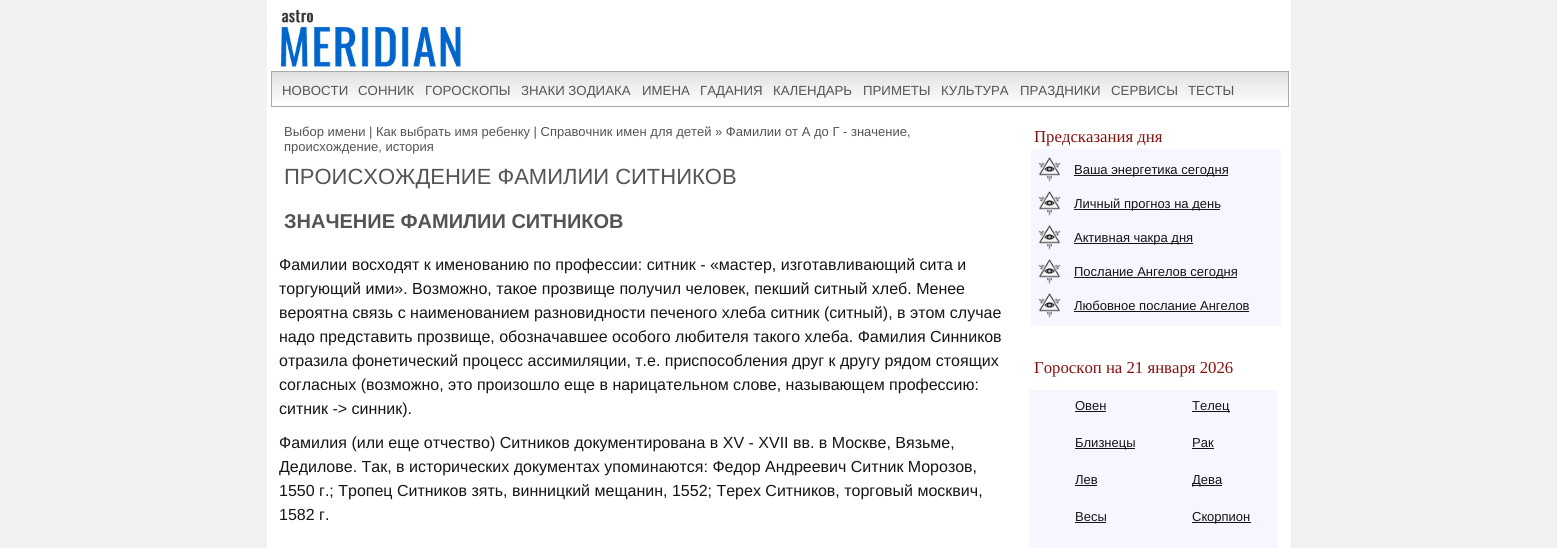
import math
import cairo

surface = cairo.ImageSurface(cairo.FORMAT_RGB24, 1557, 548)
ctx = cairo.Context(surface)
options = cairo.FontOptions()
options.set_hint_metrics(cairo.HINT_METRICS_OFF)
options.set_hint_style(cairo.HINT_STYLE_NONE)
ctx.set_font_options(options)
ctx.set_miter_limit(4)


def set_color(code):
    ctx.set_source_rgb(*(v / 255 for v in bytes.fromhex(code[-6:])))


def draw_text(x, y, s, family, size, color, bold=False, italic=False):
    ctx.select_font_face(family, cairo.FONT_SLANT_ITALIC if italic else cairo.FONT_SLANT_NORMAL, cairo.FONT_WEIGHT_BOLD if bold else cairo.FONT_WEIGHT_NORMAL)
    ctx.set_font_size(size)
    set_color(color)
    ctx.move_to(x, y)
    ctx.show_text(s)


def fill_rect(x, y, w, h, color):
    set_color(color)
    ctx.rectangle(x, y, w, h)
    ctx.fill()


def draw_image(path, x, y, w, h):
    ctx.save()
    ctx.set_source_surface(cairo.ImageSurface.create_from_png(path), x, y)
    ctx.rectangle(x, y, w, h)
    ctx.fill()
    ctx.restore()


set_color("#f2f2f2")
ctx.paint()
fill_rect(267, 0, 1024, 548, "#ffffff")
draw_image("assets/img1.png", 277, 10, 186, 58)
gradient = cairo.LinearGradient(780, 72, 780, 106)
gradient.add_color_stop_rgba(0, 0.882, 0.882, 0.882, 1)
gradient.add_color_stop_rgba(1, 1, 1, 1, 1)
ctx.set_source(gradient)
ctx.rectangle(272, 72, 1016, 31)
ctx.fill()
ctx.rectangle(271.5, 71.5, 1017, 35)
set_color("#a9a9a7")
ctx.set_line_width(1)
ctx.stroke()
draw_text(282, 95, "НОВОСТИ", "Liberation Sans", 13.25, "#545454")
draw_text(358, 95, "СОННИК", "Liberation Sans", 13.25, "#545454")
draw_text(425, 95, "ГОРОСКОПЫ", "Liberation Sans", 13.25, "#545454")
draw_text(521, 95, "ЗНАКИ ЗОДИАКА", "Liberation Sans", 13.25, "#545454")
draw_text(642, 95, "ИМЕНА", "Liberation Sans", 13.25, "#545454")
draw_text(700, 95, "ГАДАНИЯ", "Liberation Sans", 13.25, "#545454")
draw_text(773, 95, "КАЛЕНДАРЬ", "Liberation Sans", 13.25, "#545454")
draw_text(863, 95, "ПРИМЕТЫ", "Liberation Sans", 13.25, "#545454")
draw_text(941, 95, "КУЛЬТУРА", "Liberation Sans", 13.25, "#545454")
draw_text(1020, 95, "ПРАЗДНИКИ", "Liberation Sans", 13.25, "#545454")
draw_text(1111, 95, "СЕРВИСЫ", "Liberation Sans", 13.25, "#545454")
draw_text(1188, 95, "ТЕСТЫ", "Liberation Sans", 13.25, "#545454")
draw_text(284, 136, "Выбор имени | Как выбрать имя ребенку | Справочник имен для детей » Фамилии от А до Г - значение,", "Liberation Sans", 13, "#545454")
draw_text(284, 151, "происхождение, история", "Liberation Sans", 13, "#545454")
draw_text(284, 184, "ПРОИСХОЖДЕНИЕ ФАМИЛИИ СИТНИКОВ", "Liberation Sans", 22, "#545454")
draw_text(284, 228, "ЗНАЧЕНИЕ ФАМИЛИИ СИТНИКОВ", "Liberation Sans", 20, "#545454", bold=True)
draw_text(279, 270, "Фамилии восходят к именованию по профессии: ситник - «мастер, изготавливающий сита и", "Liberation Sans", 16, "#151515")
draw_text(279, 294, "торгующий ими». Возможно, такое прозвище получил человек, пекший ситный хлеб. Менее", "Liberation Sans", 16, "#151515")
draw_text(279, 318, "вероятна связь с наименованием разновидности печеного хлеба ситник (ситный), в этом случае", "Liberation Sans", 16, "#151515")
draw_text(279, 342, "надо представить прозвище, обозначавшее особого любителя такого хлеба. Фамилия Синников", "Liberation Sans", 16, "#151515")
draw_text(279, 366, "отразила фонетический процесс ассимиляции, т.е. приспособления друг к другу рядом стоящих", "Liberation Sans", 16, "#151515")
draw_text(279, 390, "согласных (возможно, это произошло еще в нарицательном слове, называющем профессию:", "Liberation Sans", 16, "#151515")
draw_text(279, 414, "ситник -> синник).", "Liberation Sans", 16, "#151515")
draw_text(279, 448, "Фамилия (или еще отчество) Ситников документирована в XV - XVII вв. в Москве, Вязьме,", "Liberation Sans", 16, "#151515")
draw_text(279, 472, "Дедилове. Так, в исторических документах упоминаются: Федор Андреевич Ситник Морозов,", "Liberation Sans", 16, "#151515")
draw_text(279, 496, "1550 г.; Тропец Ситников зять, винницкий мещанин, 1552; Терех Ситников, торговый москвич,", "Liberation Sans", 16, "#151515")
draw_text(279, 520, "1582 г.", "Liberation Sans", 16, "#151515")
draw_text(1034, 142, "Предсказания дня", "Liberation Serif", 16.75, "#860f0f")
fill_rect(1031, 149, 250, 177, "#f5f6ff")
draw_image("assets/img2.png", 1038, 157, 23, 25)
fill_rect(1074, 175, 154, 1, "#151515")
draw_text(1074, 174, "Ваша энергетика сегодня", "Liberation Sans", 13, "#151515")
draw_image("assets/img2.png", 1038, 191, 23, 25)
fill_rect(1074, 209, 146, 1, "#151515")
draw_text(1074, 208, "Личный прогноз на день", "Liberation Sans", 13, "#151515")
draw_image("assets/img2.png", 1038, 225, 23, 25)
fill_rect(1074, 243, 119, 1, "#151515")
draw_text(1074, 242, "Активная чакра дня", "Liberation Sans", 13, "#151515")
draw_image("assets/img2.png", 1038, 259, 23, 25)
fill_rect(1074, 277, 163, 1, "#151515")
draw_text(1074, 276, "Послание Ангелов сегодня", "Liberation Sans", 13, "#151515")
draw_image("assets/img2.png", 1038, 293, 23, 25)
draw_text(1074, 310, "Любовное послание Ангелов", "Liberation Sans", 13, "#151515")
fill_rect(1074, 311, 175, 1, "#151515")
draw_text(1034, 373, "Гороскоп на 21 января 2026", "Liberation Serif", 16.75, "#860f0f")
fill_rect(1029, 390, 249, 158, "#f5f6ff")
draw_text(1075, 410, "Овен", "Liberation Sans", 13, "#151515")
fill_rect(1075, 411, 31, 1, "#151515")
fill_rect(1192, 411, 38, 1, "#151515")
draw_text(1192, 410, "Телец", "Liberation Sans", 13, "#151515")
fill_rect(1075, 448, 60, 1, "#151515")
draw_text(1075, 447, "Близнецы", "Liberation Sans", 13, "#151515")
draw_text(1192, 447, "Рак", "Liberation Sans", 13, "#151515")
fill_rect(1192, 448, 22, 1, "#151515")
draw_text(1075, 484, "Лев", "Liberation Sans", 13, "#151515")
fill_rect(1075, 485, 22, 1, "#151515")
fill_rect(1192, 485, 30, 1, "#151515")
draw_text(1192, 484, "Дева", "Liberation Sans", 13, "#151515")
draw_text(1075, 521, "Весы", "Liberation Sans", 13, "#151515")
fill_rect(1075, 522, 31, 1, "#151515")
fill_rect(1192, 522, 59, 1, "#151515")
draw_text(1192, 521, "Скорпион", "Liberation Sans", 13, "#151515")
surface.write_to_png("output.png")
